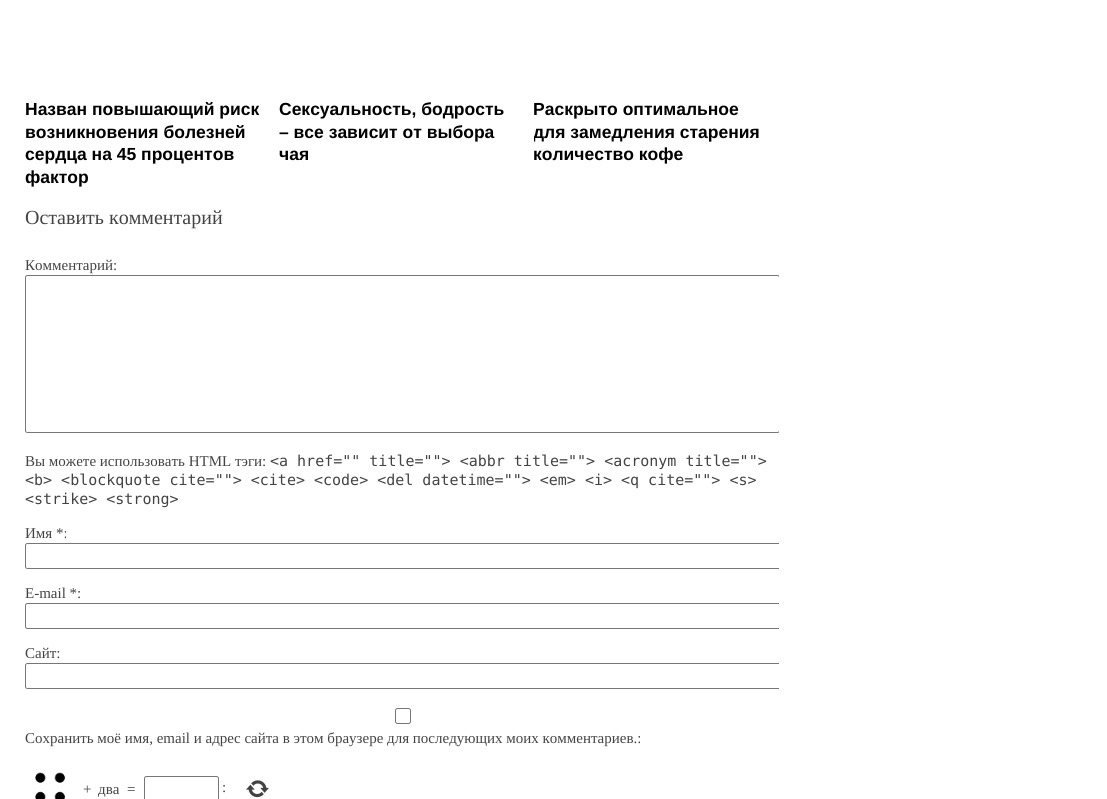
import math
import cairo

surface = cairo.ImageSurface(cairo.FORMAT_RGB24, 1107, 799)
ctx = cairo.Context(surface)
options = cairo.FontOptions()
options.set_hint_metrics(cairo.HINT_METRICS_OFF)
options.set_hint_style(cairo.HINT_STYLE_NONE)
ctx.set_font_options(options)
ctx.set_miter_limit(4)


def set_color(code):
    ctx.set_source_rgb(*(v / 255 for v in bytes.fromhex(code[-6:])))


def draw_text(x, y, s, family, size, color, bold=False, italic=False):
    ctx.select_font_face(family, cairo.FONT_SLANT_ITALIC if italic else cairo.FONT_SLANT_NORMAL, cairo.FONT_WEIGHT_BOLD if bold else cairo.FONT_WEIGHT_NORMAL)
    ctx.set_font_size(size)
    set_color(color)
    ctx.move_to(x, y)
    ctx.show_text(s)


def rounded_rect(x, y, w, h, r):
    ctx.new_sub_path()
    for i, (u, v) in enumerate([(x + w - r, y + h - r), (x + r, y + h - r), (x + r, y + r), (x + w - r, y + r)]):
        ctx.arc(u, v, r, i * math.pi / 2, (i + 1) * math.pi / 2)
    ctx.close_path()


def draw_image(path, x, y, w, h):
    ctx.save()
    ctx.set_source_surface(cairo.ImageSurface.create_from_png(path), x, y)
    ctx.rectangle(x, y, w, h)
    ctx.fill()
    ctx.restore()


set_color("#ffffff")
ctx.paint()
draw_text(25, 115, "Назван повышающий риск", "Liberation Sans", 17.5, "#000000", bold=True)
draw_text(25, 138, "возникновения болезней", "Liberation Sans", 17.5, "#000000", bold=True)
draw_text(25, 160, "сердца на 45 процентов", "Liberation Sans", 17.5, "#000000", bold=True)
draw_text(25, 183, "фактор", "Liberation Sans", 17.5, "#000000", bold=True)
draw_text(279, 115, "Сексуальность, бодрость", "Liberation Sans", 17.5, "#000000", bold=True)
draw_text(279, 138, "– все зависит от выбора", "Liberation Sans", 17.5, "#000000", bold=True)
draw_text(279, 160, "чая", "Liberation Sans", 17.5, "#000000", bold=True)
draw_text(533, 115, "Раскрыто оптимальное", "Liberation Sans", 17.5, "#000000", bold=True)
ctx.save()
ctx.rectangle(534, 98, 239, 67)
ctx.clip()
draw_text(533, 138, "для замедления старения", "Liberation Sans", 17.5, "#000000", bold=True)
ctx.restore()
draw_text(533, 160, "количество кофе", "Liberation Sans", 17.5, "#000000", bold=True)
draw_text(25, 224, "Оставить комментарий", "Liberation Serif", 20, "#434343")
draw_text(25, 270, "Комментарий:", "Liberation Serif", 15, "#434343")
ctx.save()
ctx.rectangle(0, 0, 779, 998)
ctx.clip()
rounded_rect(25.5, 275.5, 754, 157, 2)
set_color("#767676")
ctx.set_line_width(1)
ctx.stroke()
ctx.restore()
draw_text(25, 466, "Вы можете использовать HTML тэги:", "Liberation Serif", 15, "#434343")
draw_text(270, 466, "<a href=\"\" title=\"\"> <abbr title=\"\"> <acronym title=\"\">", "DejaVu Sans Mono", 15, "#434343")
draw_text(25, 485, "<b> <blockquote cite=\"\"> <cite> <code> <del datetime=\"\"> <em> <i> <q cite=\"\"> <s>", "DejaVu Sans Mono", 15, "#434343")
draw_text(25, 504, "<strike> <strong>", "DejaVu Sans Mono", 15, "#434343")
draw_text(25, 538, "Имя *:", "Liberation Serif", 15, "#434343")
ctx.save()
ctx.rectangle(0, 0, 779, 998)
ctx.clip()
rounded_rect(25.5, 543.5, 757, 25, 2)
set_color("#767676")
ctx.set_line_width(1)
ctx.stroke()
ctx.restore()
draw_text(25, 598, "E-mail *:", "Liberation Serif", 15, "#434343")
ctx.save()
ctx.rectangle(0, 0, 779, 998)
ctx.clip()
rounded_rect(25.5, 603.5, 757, 25, 2)
set_color("#767676")
ctx.set_line_width(1)
ctx.stroke()
ctx.restore()
draw_text(25, 658, "Сайт:", "Liberation Serif", 15, "#434343")
ctx.save()
ctx.rectangle(0, 0, 779, 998)
ctx.clip()
rounded_rect(25.5, 663.5, 757, 25, 2)
set_color("#767676")
ctx.set_line_width(1)
ctx.stroke()
ctx.restore()
rounded_rect(395.5, 708.5, 15, 15, 2)
set_color("#767676")
ctx.set_line_width(1)
ctx.stroke()
draw_text(25, 743, "Сохранить моё имя, email и адрес сайта в этом браузере для последующих моих комментариев.:", "Liberation Serif", 15, "#434343")
draw_image("assets/img1.png", 35, 772, 30, 27)
draw_text(83, 794, "+", "Liberation Serif", 15, "#434343")
draw_text(98, 794, "два", "Liberation Serif", 15, "#434343")
draw_text(127, 794, "=", "Liberation Serif", 15, "#434343")
rounded_rect(144.5, 776.5, 74, 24, 2)
set_color("#767676")
ctx.stroke()
draw_text(222, 792, ":", "Liberation Serif", 15, "#434343")
draw_image("assets/img2.png", 246, 780, 23, 18)
surface.write_to_png("output.png")
